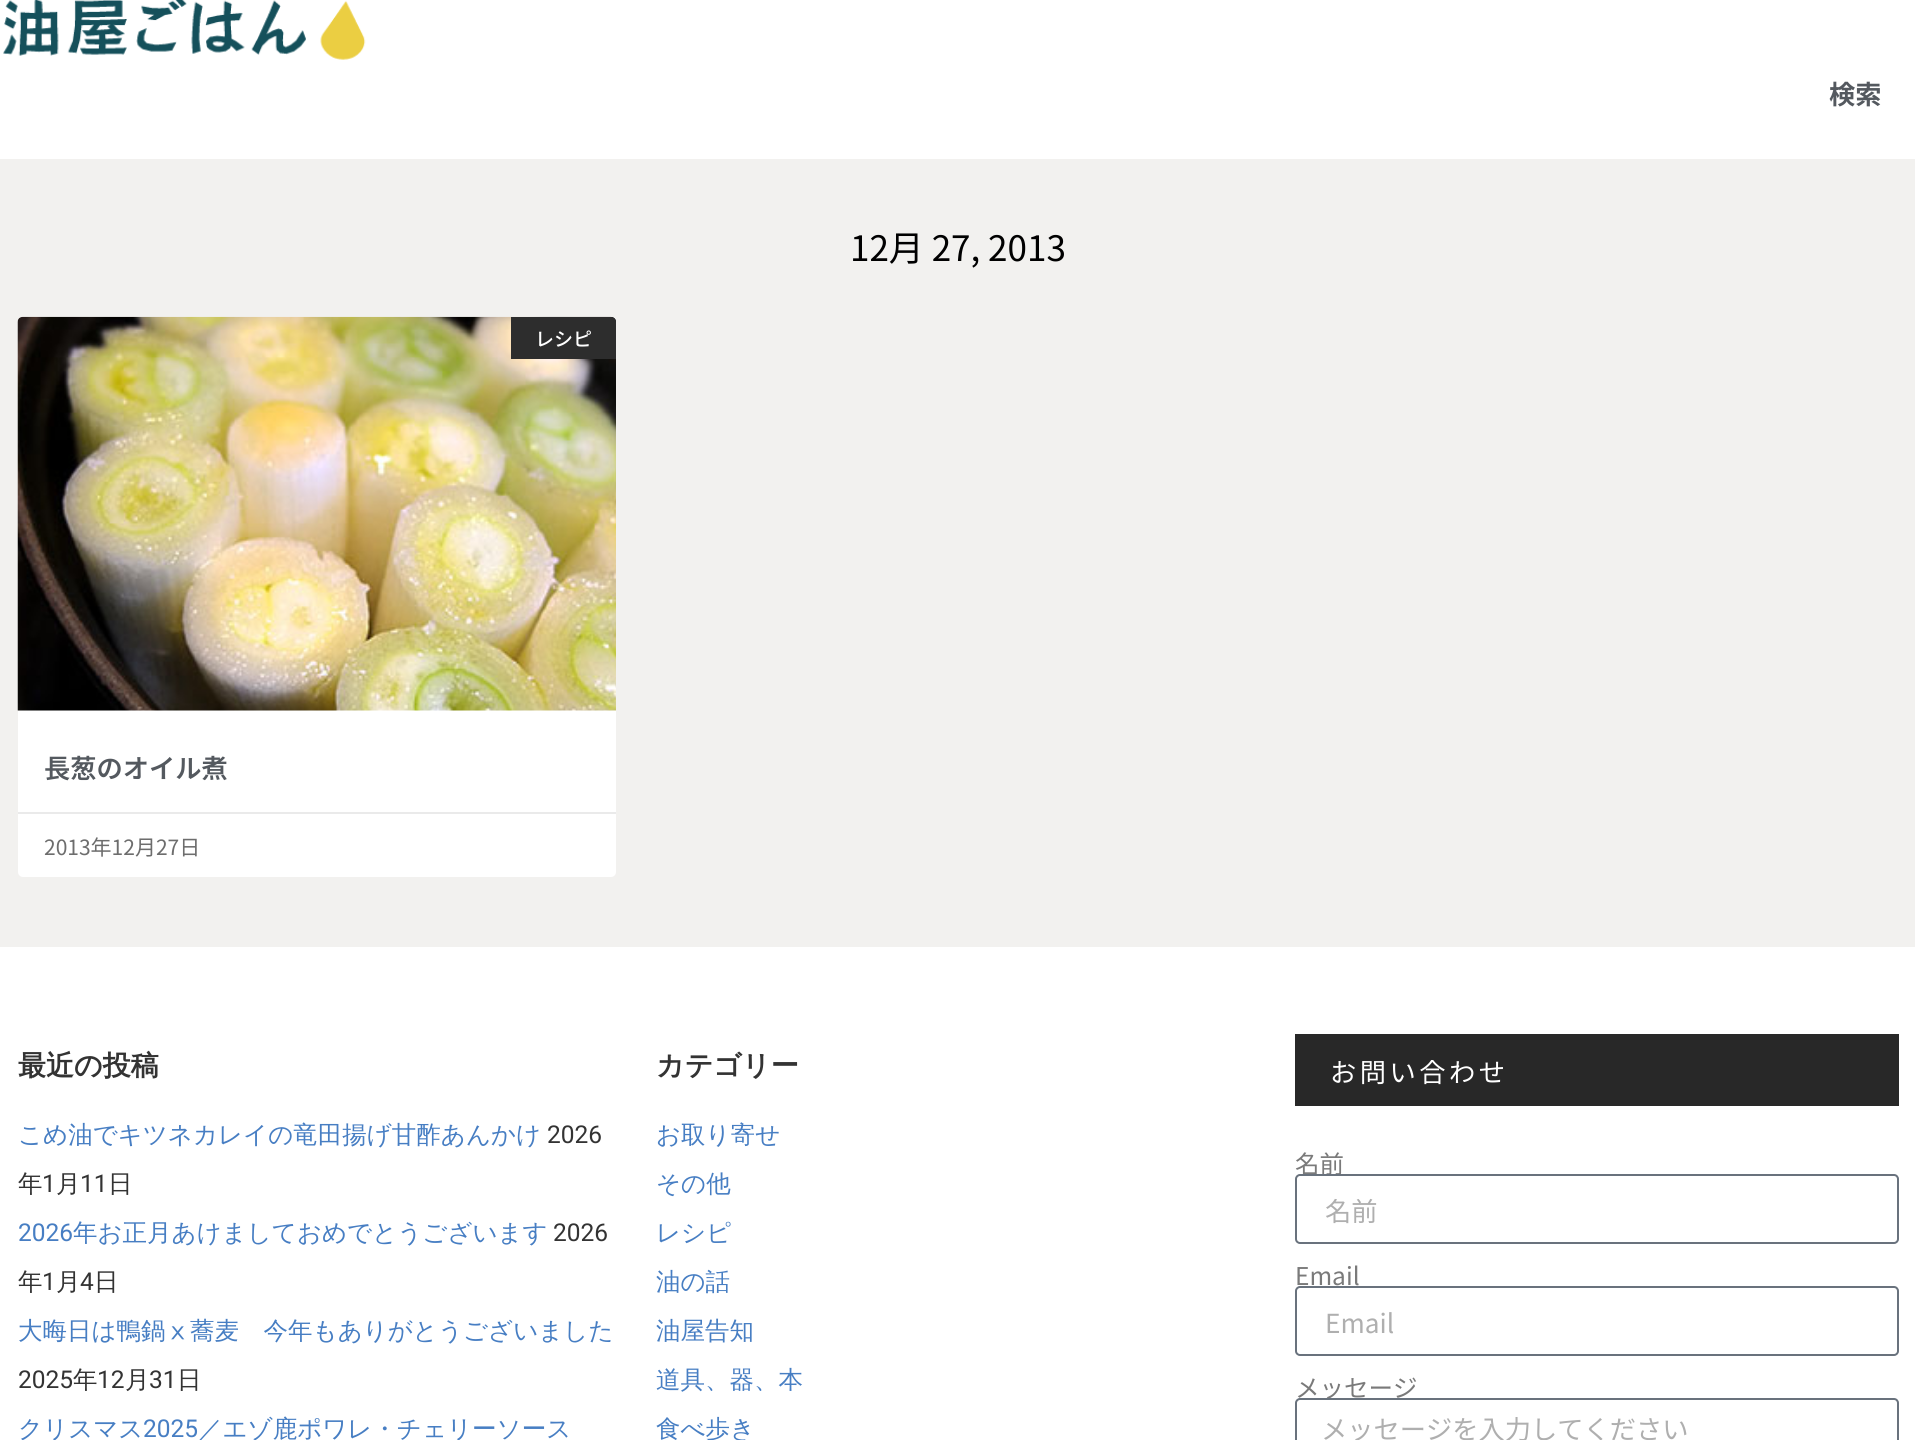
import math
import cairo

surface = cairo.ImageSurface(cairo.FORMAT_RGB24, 1915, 1440)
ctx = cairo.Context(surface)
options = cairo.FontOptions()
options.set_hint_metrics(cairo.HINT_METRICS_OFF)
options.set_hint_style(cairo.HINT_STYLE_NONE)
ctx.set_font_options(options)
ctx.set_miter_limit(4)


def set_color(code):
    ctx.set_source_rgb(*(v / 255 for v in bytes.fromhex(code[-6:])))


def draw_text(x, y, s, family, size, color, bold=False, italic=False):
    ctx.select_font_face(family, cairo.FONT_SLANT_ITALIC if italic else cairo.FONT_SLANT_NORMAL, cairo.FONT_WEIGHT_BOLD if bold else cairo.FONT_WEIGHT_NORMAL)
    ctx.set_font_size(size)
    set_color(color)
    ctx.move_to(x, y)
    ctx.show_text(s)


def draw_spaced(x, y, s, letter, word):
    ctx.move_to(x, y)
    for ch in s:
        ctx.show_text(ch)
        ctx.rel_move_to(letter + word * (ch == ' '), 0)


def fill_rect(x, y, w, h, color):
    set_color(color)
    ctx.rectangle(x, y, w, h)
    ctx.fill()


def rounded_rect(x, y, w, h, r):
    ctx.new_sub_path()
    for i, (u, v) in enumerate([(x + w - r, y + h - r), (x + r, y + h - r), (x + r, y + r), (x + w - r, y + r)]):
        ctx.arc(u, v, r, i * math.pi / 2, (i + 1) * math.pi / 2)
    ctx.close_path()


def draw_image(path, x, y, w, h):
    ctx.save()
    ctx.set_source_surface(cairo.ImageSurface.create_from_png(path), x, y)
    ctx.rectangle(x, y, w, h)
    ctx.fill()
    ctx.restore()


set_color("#ffffff")
ctx.paint()
draw_image("assets/img1.png", 3, 0, 363, 60)
draw_text(1829, 104, "検索", "Noto Sans JP", 26.25, "#54595f", bold=True)
fill_rect(0, 159, 1915, 788, "#f2f1ef")
draw_text(850, 261, "12月 27, 2013", "Noto Sans JP", 35, "#000000")
set_color("#ffffff")
rounded_rect(18, 317, 598, 560, 5)
ctx.fill()
draw_image("assets/img2.png", 17, 316, 599, 395)
set_color("#2d2d2d")
ctx.new_path()
ctx.move_to(511, 317)
ctx.line_to(611, 317)
ctx.curve_to(614, 317, 616, 319, 616, 322)
ctx.line_to(616, 359)
ctx.line_to(511, 359)
ctx.close_path()
ctx.fill()
draw_text(535, 346, "レシピ", "Noto Sans JP Medium", 19, "#ffffff")
draw_text(44, 778, "長葱のオイル煮", "Noto Sans JP SemiBold", 26.25, "#54595f")
fill_rect(18, 812, 598, 2, "#eaeaea")
draw_text(44, 855, "2013年12月27日", "Noto Sans JP", 21, "#6d6d6d")
draw_text(18, 1075, "最近の投稿", "WenQuanYi Zen Hei", 28, "#333333", bold=True)
draw_text(18, 1143, "こめ油でキツネカレイの竜田揚げ甘酢あんかけ", "WenQuanYi Zen Hei Medium", 24.5, "#477ec3")
draw_text(547, 1143, "2026", "Roboto", 24.5, "#333333")
draw_text(18, 1192, "年", "WenQuanYi Zen Hei Medium", 24.5, "#333333")
draw_text(42, 1192, "1", "Roboto", 24.5, "#333333")
draw_text(56, 1192, "月", "WenQuanYi Zen Hei Medium", 24.5, "#333333")
draw_text(80, 1192, "11", "Roboto", 24.5, "#333333")
draw_text(108, 1192, "日", "WenQuanYi Zen Hei Medium", 24.5, "#333333")
draw_text(18, 1241, "2026", "Roboto", 24.5, "#477ec3")
draw_text(73, 1241, "年お正月あけましておめでとうございます", "WenQuanYi Zen Hei Medium", 24.5, "#477ec3")
draw_text(553, 1241, "2026", "Roboto", 24.5, "#333333")
draw_text(18, 1290, "年", "WenQuanYi Zen Hei Medium", 24.5, "#333333")
draw_text(42, 1290, "1", "Roboto", 24.5, "#333333")
draw_text(56, 1290, "月", "WenQuanYi Zen Hei Medium", 24.5, "#333333")
draw_text(80, 1290, "4", "Roboto", 24.5, "#333333")
draw_text(94, 1290, "日", "WenQuanYi Zen Hei Medium", 24.5, "#333333")
draw_text(18, 1339, "大晦日は鴨鍋ⅹ蕎麦　今年もありがとうございました", "WenQuanYi Zen Hei Medium", 24.5, "#477ec3")
draw_text(18, 1388, "2025", "Roboto", 24.5, "#333333")
draw_text(73, 1388, "年", "WenQuanYi Zen Hei Medium", 24.5, "#333333")
draw_text(97, 1388, "12", "Roboto", 24.5, "#333333")
draw_text(125, 1388, "月", "WenQuanYi Zen Hei Medium", 24.5, "#333333")
draw_text(149, 1388, "31", "Roboto", 24.5, "#333333")
draw_text(177, 1388, "日", "WenQuanYi Zen Hei Medium", 24.5, "#333333")
draw_text(18, 1437, "クリスマス", "WenQuanYi Zen Hei Medium", 24.5, "#477ec3")
draw_text(143, 1437, "2025", "Roboto", 24.5, "#477ec3")
draw_text(198, 1437, "／エゾ鹿ポワレ・チェリーソース", "WenQuanYi Zen Hei Medium", 24.5, "#477ec3")
draw_text(656, 1075, "カテゴリー", "WenQuanYi Zen Hei", 28, "#333333", bold=True)
draw_text(656, 1143, "お取り寄せ", "WenQuanYi Zen Hei Medium", 24.5, "#477ec3")
draw_text(656, 1192, "その他", "WenQuanYi Zen Hei Medium", 24.5, "#477ec3")
draw_text(656, 1241, "レシピ", "WenQuanYi Zen Hei Medium", 24.5, "#477ec3")
draw_text(656, 1290, "油の話", "WenQuanYi Zen Hei Medium", 24.5, "#477ec3")
draw_text(656, 1339, "油屋告知", "WenQuanYi Zen Hei Medium", 24.5, "#477ec3")
draw_text(656, 1388, "道具、器、本", "WenQuanYi Zen Hei Medium", 24.5, "#477ec3")
draw_text(656, 1437, "食べ歩き", "WenQuanYi Zen Hei Medium", 24.5, "#477ec3")
fill_rect(1295, 1034, 604, 72, "#282828")
ctx.select_font_face("Noto Sans JP")
ctx.set_font_size(26.25)
set_color("#ffffff")
draw_spaced(1330, 1082, "お問い合わせ", 3.5, 0)
draw_text(1295, 1173, "名前", "Noto Sans JP", 24.5, "#7a7a7a")
set_color("#ffffff")
rounded_rect(1296, 1175, 602, 68, 4)
ctx.fill_preserve()
set_color("#69727d")
ctx.stroke()
draw_text(1325, 1221, "名前", "Noto Sans JP", 26.25, "#afafaf")
draw_text(1295, 1285, "Email", "Noto Sans JP", 24.5, "#7a7a7a")
rounded_rect(1296, 1287, 602, 68, 4)
set_color("#69727d")
ctx.stroke()
draw_text(1325, 1333, "Email", "Noto Sans JP", 26.25, "#afafaf")
draw_text(1295, 1397, "メッセージ", "Noto Sans JP", 24.5, "#7a7a7a")
set_color("#ffffff")
rounded_rect(1296, 1399, 602, 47, 4)
ctx.fill_preserve()
set_color("#69727d")
ctx.stroke()
draw_text(1321, 1439, "メッセージを入力してください", "Noto Sans JP", 26.25, "#afafaf")
surface.write_to_png("output.png")
